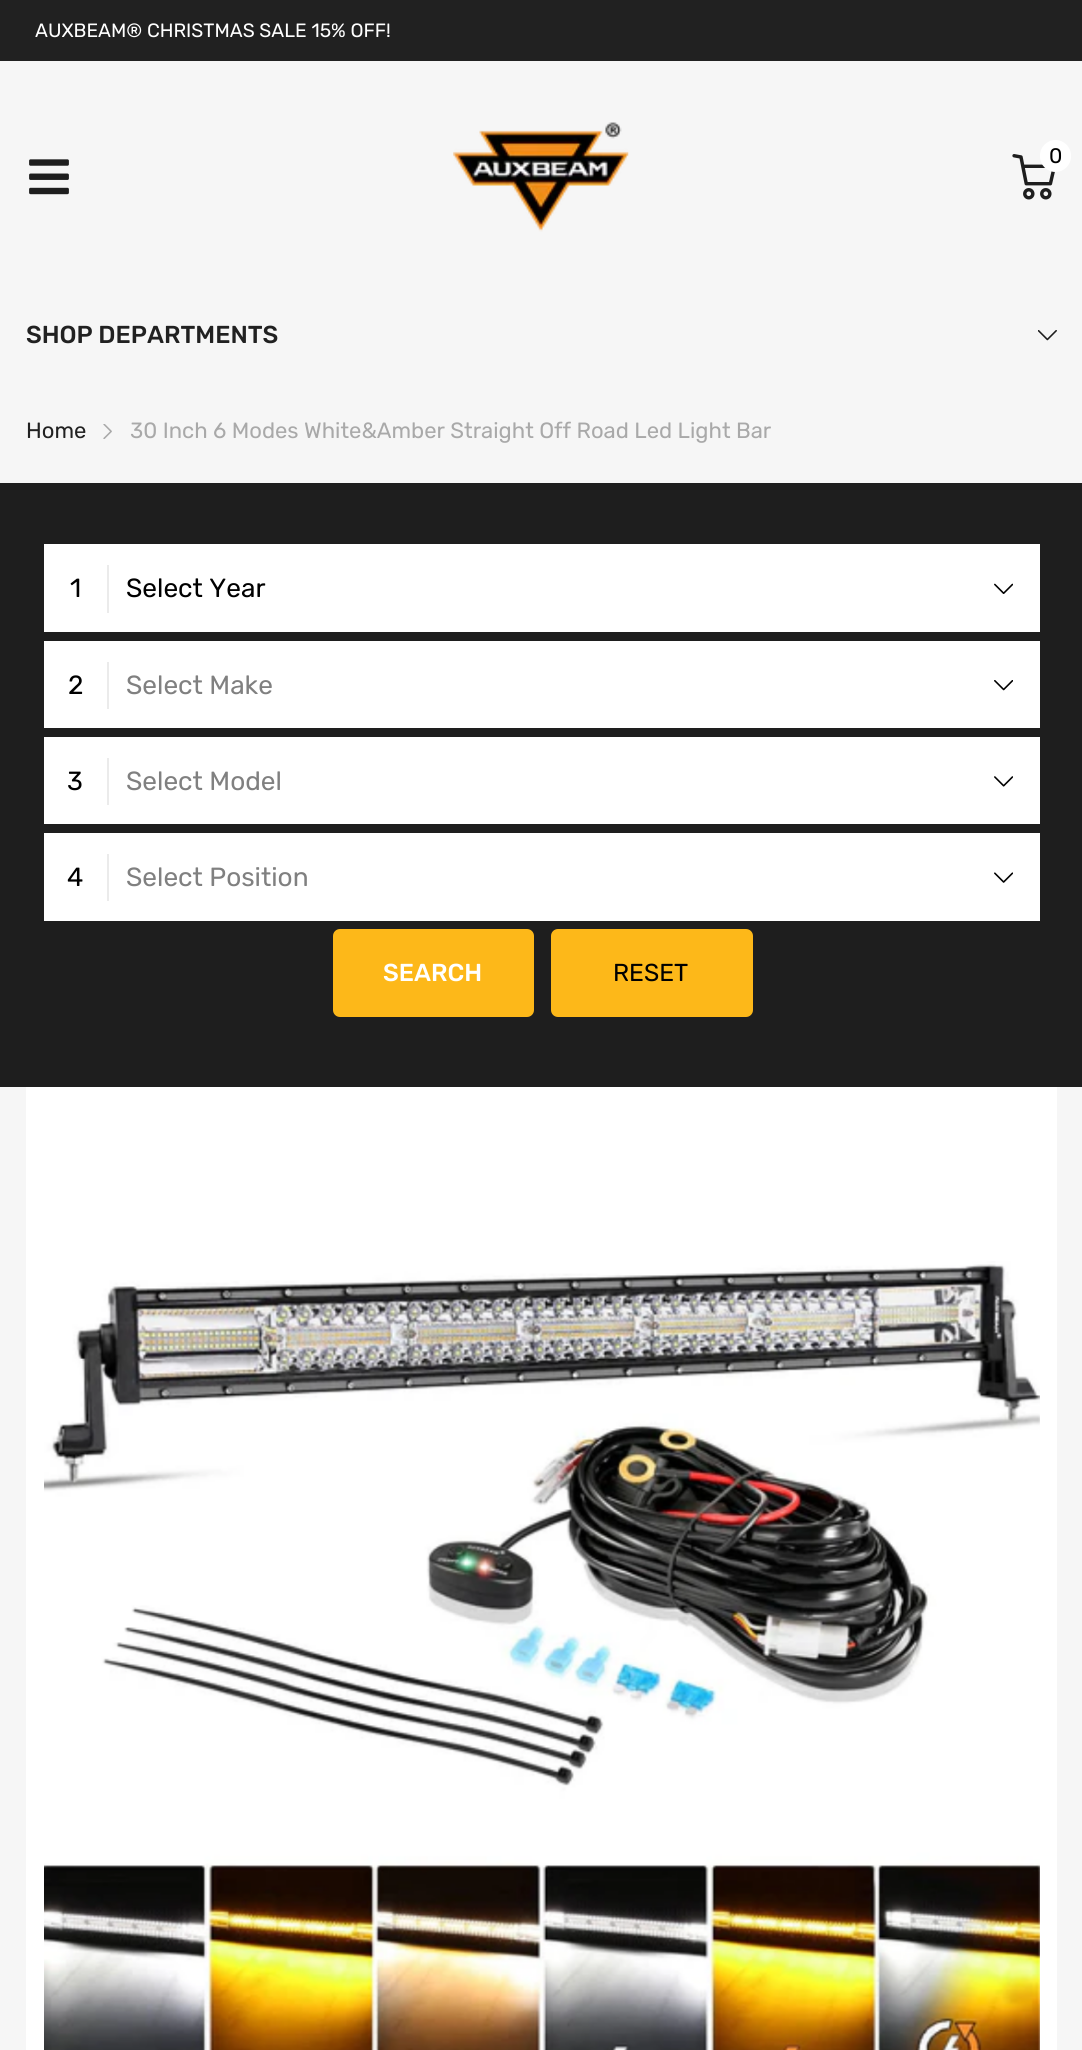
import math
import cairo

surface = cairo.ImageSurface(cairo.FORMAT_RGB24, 1082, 2050)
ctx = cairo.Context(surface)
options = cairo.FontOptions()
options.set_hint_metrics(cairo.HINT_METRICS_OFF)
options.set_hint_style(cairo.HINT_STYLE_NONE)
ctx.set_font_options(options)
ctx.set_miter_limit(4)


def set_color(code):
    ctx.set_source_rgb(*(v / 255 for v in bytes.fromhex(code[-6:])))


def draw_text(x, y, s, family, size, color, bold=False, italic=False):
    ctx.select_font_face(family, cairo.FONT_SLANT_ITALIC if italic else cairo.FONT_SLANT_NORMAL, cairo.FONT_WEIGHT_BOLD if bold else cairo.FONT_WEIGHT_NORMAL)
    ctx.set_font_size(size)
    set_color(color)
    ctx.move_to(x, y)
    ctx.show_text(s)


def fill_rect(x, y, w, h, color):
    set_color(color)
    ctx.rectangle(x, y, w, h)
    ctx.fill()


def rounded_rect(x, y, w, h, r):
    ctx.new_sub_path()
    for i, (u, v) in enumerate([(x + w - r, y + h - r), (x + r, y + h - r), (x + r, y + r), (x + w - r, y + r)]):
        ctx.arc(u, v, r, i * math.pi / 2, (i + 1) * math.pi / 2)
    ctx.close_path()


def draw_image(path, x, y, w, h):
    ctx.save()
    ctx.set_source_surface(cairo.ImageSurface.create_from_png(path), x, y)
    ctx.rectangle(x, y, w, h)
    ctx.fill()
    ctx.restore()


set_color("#f6f6f6")
ctx.paint()
fill_rect(0, 0, 1082, 61, "#212121")
draw_text(35, 37, "AUXBEAM® CHRISTMAS SALE 15% OFF!", "Rubik", 19.25, "#ffffff")
draw_image("assets/img1.png", 453, 122, 176, 110)
draw_image("assets/img2.png", 1012, 154, 43, 46)
rounded_rect(1040, 140, 31, 32, 15.5)
ctx.fill()
draw_text(1049, 163, "0", "Rubik", 21, "#000000")
draw_image("assets/img3.png", 29, 159, 40, 36)
draw_text(26, 343, "SHOP DEPARTMENTS", "Rubik Medium", 24.5, "#212121")
draw_image("assets/img4.png", 1038, 330, 19, 11)
draw_text(26, 438, "Home", "Rubik", 22.05, "#212121")
draw_image("assets/img5.png", 103, 424, 9, 15)
draw_text(130, 438, "30 Inch 6 Modes White&Amber Straight Off Road Led Light Bar", "Rubik", 22.05, "#a9a9a9")
fill_rect(0, 483, 1082, 604, "#1e1e1e")
fill_rect(44, 544, 996, 88, "#ffffff")
fill_rect(107, 565, 2, 48, "#ebebeb")
draw_text(70, 597, "1", "Rubik", 26.25, "#000000")
draw_text(126, 597, "Select Year", "Rubik", 26.25, "#000000")
draw_image("assets/img6.png", 994, 583, 19, 11)
fill_rect(44, 641, 996, 87, "#ffffff")
fill_rect(107, 662, 2, 47, "#ebebeb")
draw_text(68, 694, "2", "Rubik", 26.25, "#000000")
draw_text(126, 694, "Select Make", "Rubik", 26.25, "#808080")
draw_image("assets/img7.png", 994, 680, 19, 11)
fill_rect(44, 737, 996, 87, "#ffffff")
fill_rect(107, 758, 2, 47, "#ebebeb")
draw_text(67, 790, "3", "Rubik", 26.25, "#000000")
draw_text(126, 790, "Select Model", "Rubik", 26.25, "#808080")
draw_image("assets/img8.png", 994, 776, 19, 11)
fill_rect(44, 833, 996, 88, "#ffffff")
fill_rect(107, 854, 2, 47, "#ebebeb")
draw_text(67, 886, "4", "Rubik", 26.25, "#000000")
draw_text(126, 886, "Select Position", "Rubik", 26.25, "#808080")
draw_image("assets/img9.png", 994, 872, 19, 11)
set_color("#fdb819")
rounded_rect(333, 929, 201, 88, 7)
ctx.fill()
draw_text(383, 981, "SEARCH", "Rubik Medium", 24.5, "#ffffff")
set_color("#fdb819")
rounded_rect(551, 929, 202, 88, 7)
ctx.fill()
draw_text(613, 981, "RESET", "Rubik", 24.5, "#000000")
fill_rect(26, 1087, 1031, 963, "#ffffff")
draw_image("assets/img10.png", 44, 1261, 996, 789)
surface.write_to_png("output.png")
